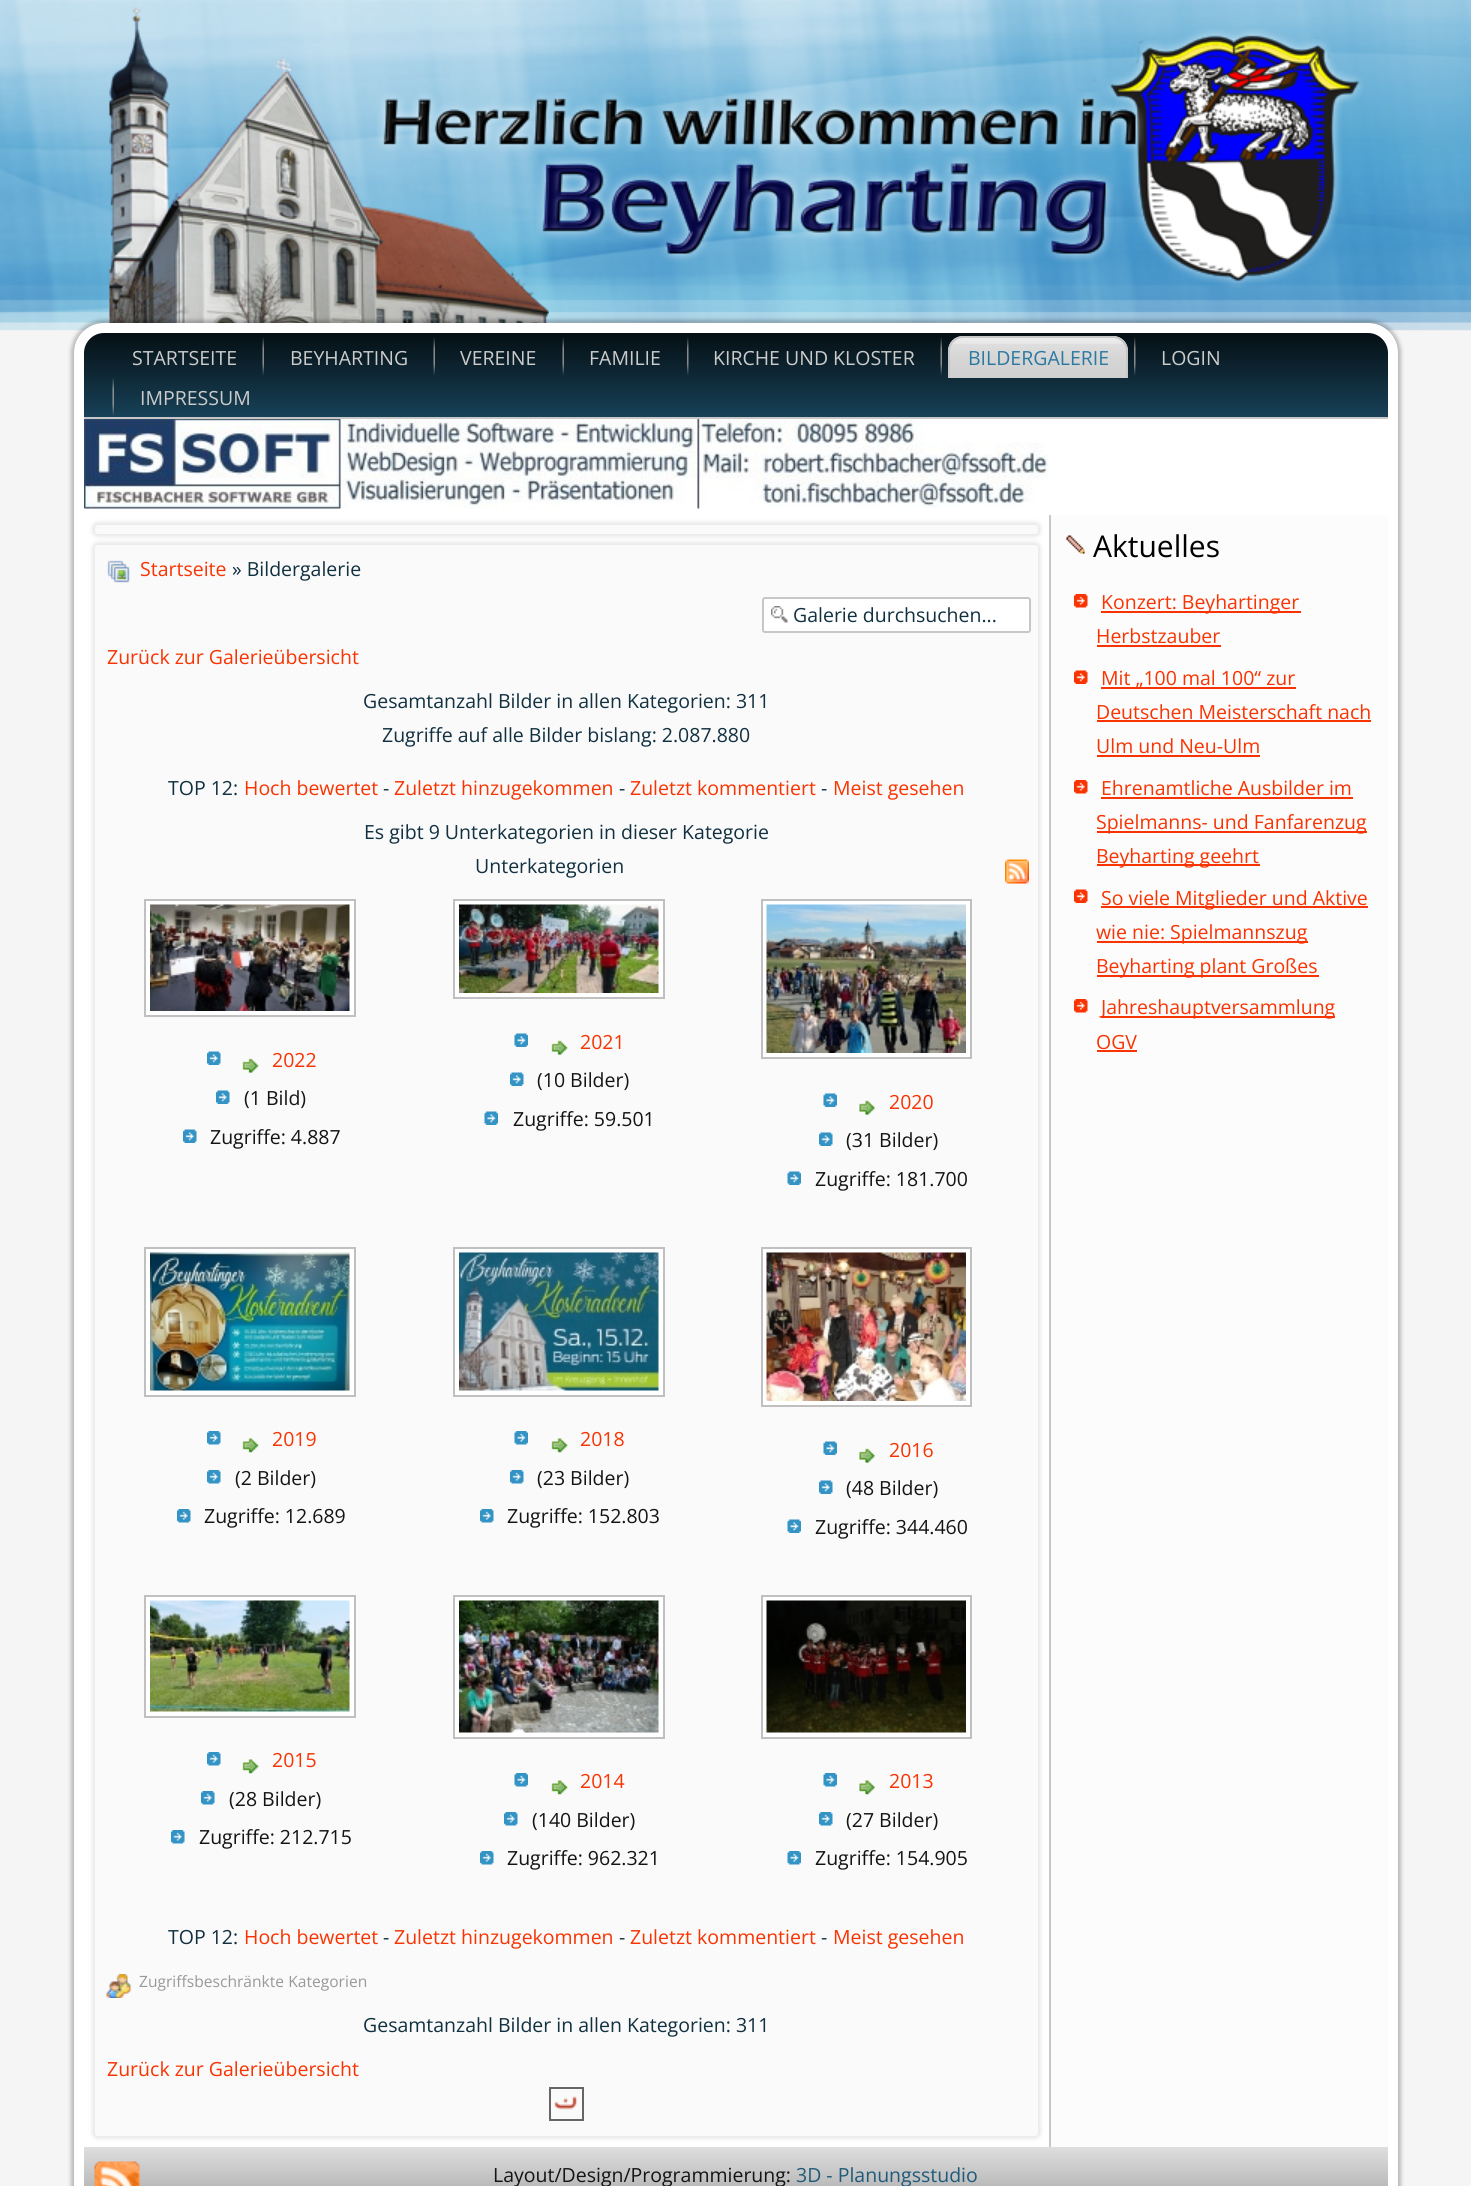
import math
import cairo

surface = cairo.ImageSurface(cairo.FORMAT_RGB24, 1471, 2186)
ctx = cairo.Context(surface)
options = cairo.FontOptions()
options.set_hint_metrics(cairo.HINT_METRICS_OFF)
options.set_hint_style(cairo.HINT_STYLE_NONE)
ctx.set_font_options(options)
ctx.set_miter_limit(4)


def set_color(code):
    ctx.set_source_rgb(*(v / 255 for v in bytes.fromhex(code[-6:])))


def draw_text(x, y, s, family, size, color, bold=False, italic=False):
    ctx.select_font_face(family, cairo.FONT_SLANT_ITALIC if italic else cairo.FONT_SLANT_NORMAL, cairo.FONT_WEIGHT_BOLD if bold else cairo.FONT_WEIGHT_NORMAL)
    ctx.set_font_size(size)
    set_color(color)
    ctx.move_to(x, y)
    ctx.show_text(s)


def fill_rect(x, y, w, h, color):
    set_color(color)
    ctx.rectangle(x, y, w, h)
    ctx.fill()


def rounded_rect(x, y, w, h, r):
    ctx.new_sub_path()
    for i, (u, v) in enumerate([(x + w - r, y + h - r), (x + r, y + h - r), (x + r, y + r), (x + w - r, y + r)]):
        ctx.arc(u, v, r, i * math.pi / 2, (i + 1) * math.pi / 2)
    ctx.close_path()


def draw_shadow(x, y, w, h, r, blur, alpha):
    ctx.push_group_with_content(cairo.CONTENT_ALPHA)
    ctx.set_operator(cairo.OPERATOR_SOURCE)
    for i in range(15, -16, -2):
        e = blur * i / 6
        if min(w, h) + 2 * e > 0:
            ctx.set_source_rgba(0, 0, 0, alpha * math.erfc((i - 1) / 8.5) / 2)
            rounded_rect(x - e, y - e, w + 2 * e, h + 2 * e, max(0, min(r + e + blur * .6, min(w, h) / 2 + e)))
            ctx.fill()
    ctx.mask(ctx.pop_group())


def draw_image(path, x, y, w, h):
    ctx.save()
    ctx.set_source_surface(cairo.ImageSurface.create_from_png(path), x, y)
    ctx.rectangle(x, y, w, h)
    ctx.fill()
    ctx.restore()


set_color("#ffffff")
ctx.paint()
gradient = cairo.LinearGradient(736, 0, 736, 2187)
gradient.add_color_stop_rgba(0, 0.62, 0.62, 0.62, 1)
gradient.add_color_stop_rgba(0.03, 0.961, 0.961, 0.961, 1)
ctx.set_source(gradient)
ctx.rectangle(0, 284, 1471, 1902)
ctx.fill()
draw_image("assets/img1.png", 0, 0, 1471, 331)
draw_image("assets/img2.png", 109, 7, 440, 316)
draw_image("assets/img4.png", 1093, 28, 271, 260)
draw_image("assets/img3.png", 377, 92, 767, 61)
draw_image("assets/img5.png", 536, 156, 578, 107)
set_color("#000000")
draw_shadow(71, 320, 1330, 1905, 33, 2, 0.25)
set_color("#ffffff")
rounded_rect(74, 323, 1324, 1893, 30)
ctx.fill()
gradient = cairo.LinearGradient(736, 333, 736, 419)
gradient.add_color_stop_rgba(0, 0.02, 0.059, 0.078, 1)
gradient.add_color_stop_rgba(1, 0.094, 0.259, 0.349, 1)
ctx.set_source(gradient)
ctx.new_path()
ctx.move_to(104, 333)
ctx.line_to(1368, 333)
ctx.curve_to(1379, 333, 1388, 342, 1388, 353)
ctx.line_to(1388, 419)
ctx.line_to(84, 419)
ctx.line_to(84, 353)
ctx.curve_to(84, 342, 93, 333, 104, 333)
ctx.close_path()
ctx.fill()
fill_rect(84, 417, 1304, 2, "#c7c7c7")
draw_text(132, 365, "STARTSEITE", "Open Sans", 19.5, "#cccccc")
draw_image("assets/img6.png", 262, 337, 2, 38)
draw_text(290, 365, "BEYHARTING", "Open Sans", 19.5, "#cccccc")
draw_image("assets/img6.png", 433, 337, 2, 38)
draw_text(460, 365, "VEREINE", "Open Sans", 19.5, "#cccccc")
draw_image("assets/img6.png", 562, 337, 2, 38)
draw_text(589, 365, "FAMILIE", "Open Sans", 19.5, "#cccccc")
draw_image("assets/img7.png", 687, 337, 2, 38)
draw_text(713, 365, "KIRCHE UND KLOSTER", "Open Sans", 19.5, "#cccccc")
draw_image("assets/img6.png", 940, 337, 2, 38)
gradient = cairo.LinearGradient(1038, 336, 1038, 378)
gradient.add_color_stop_rgba(0, 0.929, 0.929, 0.929, 1)
gradient.add_color_stop_rgba(0.1, 0.922, 0.922, 0.922, 1)
gradient.add_color_stop_rgba(0.2, 0.898, 0.898, 0.898, 1)
gradient.add_color_stop_rgba(0.2, 0.871, 0.871, 0.871, 1)
gradient.add_color_stop_rgba(0.5, 0.839, 0.839, 0.839, 1)
gradient.add_color_stop_rgba(1, 0.812, 0.812, 0.812, 1)
ctx.set_source(gradient)
ctx.new_path()
ctx.move_to(963, 336)
ctx.line_to(1113, 336)
ctx.curve_to(1121.5, 336, 1128, 342.5, 1128, 351)
ctx.line_to(1128, 378)
ctx.line_to(948, 378)
ctx.line_to(948, 351)
ctx.curve_to(948, 342.5, 954.5, 336, 963, 336)
ctx.close_path()
ctx.fill()
set_color("#c7c7c7")
ctx.set_fill_rule(cairo.FILL_RULE_EVEN_ODD)
ctx.new_path()
ctx.move_to(963, 336)
ctx.line_to(1113, 336)
ctx.curve_to(1121, 336, 1128, 343, 1128, 351)
ctx.line_to(1128, 378)
ctx.line_to(948, 378)
ctx.line_to(948, 351)
ctx.curve_to(948, 343, 955, 336, 963, 336)
ctx.close_path()
ctx.move_to(963, 338)
ctx.line_to(1113, 338)
ctx.curve_to(1120, 338, 1126, 344, 1126, 351)
ctx.line_to(1126, 378)
ctx.line_to(950, 378)
ctx.line_to(950, 351)
ctx.curve_to(950, 344, 956, 338, 963, 338)
ctx.close_path()
ctx.fill()
draw_text(968, 365, "BILDERGALERIE", "Open Sans", 19.5, "#2b78a1")
draw_image("assets/img7.png", 1134, 337, 2, 38)
draw_text(1161, 365, "LOGIN", "Open Sans", 19.5, "#cccccc")
draw_image("assets/img8.png", 112, 378, 2, 38)
draw_text(140, 405, "IMPRESSUM", "Open Sans", 19.5, "#cccccc")
draw_image("assets/img9.png", 84, 419, 965, 90)
ctx.save()
ctx.new_path()
ctx.move_to(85, 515)
ctx.line_to(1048, 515)
ctx.line_to(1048, 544)
ctx.line_to(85, 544)
ctx.close_path()
ctx.move_to(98, 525)
ctx.line_to(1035, 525)
ctx.curve_to(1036.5, 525, 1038, 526.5, 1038, 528)
ctx.line_to(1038, 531)
ctx.curve_to(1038, 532.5, 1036.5, 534, 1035, 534)
ctx.line_to(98, 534)
ctx.curve_to(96.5, 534, 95, 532.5, 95, 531)
ctx.line_to(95, 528)
ctx.curve_to(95, 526.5, 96.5, 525, 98, 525)
ctx.close_path()
ctx.clip()
set_color("#000000")
draw_shadow(92, 522, 949, 15, 6, 2, 0.09)
ctx.restore()
ctx.set_source_rgba(0.929, 0.929, 0.929, 0.3)
rounded_rect(95, 525, 943, 9, 3)
ctx.fill()
ctx.save()
ctx.new_path()
ctx.move_to(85, 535)
ctx.line_to(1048, 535)
ctx.line_to(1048, 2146)
ctx.line_to(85, 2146)
ctx.close_path()
ctx.move_to(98, 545)
ctx.line_to(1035, 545)
ctx.curve_to(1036.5, 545, 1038, 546.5, 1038, 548)
ctx.line_to(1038, 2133)
ctx.curve_to(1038, 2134.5, 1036.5, 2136, 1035, 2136)
ctx.line_to(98, 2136)
ctx.curve_to(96.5, 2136, 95, 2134.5, 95, 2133)
ctx.line_to(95, 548)
ctx.curve_to(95, 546.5, 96.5, 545, 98, 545)
ctx.close_path()
ctx.clip()
set_color("#000000")
draw_shadow(92, 542, 949, 1597, 6, 2, 0.09)
ctx.restore()
rounded_rect(95, 545, 943, 1591, 3)
ctx.fill()
draw_image("assets/img10.png", 107, 560, 23, 23)
draw_text(140, 576, "Startseite", "Open Sans", 19.5, "#f93301")
draw_text(232, 576, "» Bildergalerie", "Open Sans", 19.5, "#113040")
set_color("#ffffff")
rounded_rect(762, 597, 269, 36, 3)
ctx.fill()
draw_image("assets/img11.png", 771, 606, 17, 17)
rounded_rect(763, 598, 267, 34, 2)
set_color("#c7c7c7")
ctx.stroke()
draw_text(793, 622, "Galerie durchsuchen...", "Open Sans", 19.5, "#113040")
draw_text(107, 664, "Zurück zur Galerieübersicht", "Open Sans", 19.5, "#f93301")
draw_text(363, 708, "Gesamtanzahl Bilder in allen Kategorien: 311", "Open Sans", 19.5, "#113040")
draw_text(382, 742, "Zugriffe auf alle Bilder bislang: 2.087.880", "Open Sans", 19.5, "#113040")
draw_text(168, 795, "TOP 12:", "Open Sans", 19.5, "#113040")
draw_text(244, 795, "Hoch bewertet", "Open Sans", 19.5, "#f93301")
draw_text(383, 795, "-", "Open Sans", 19.5, "#113040")
draw_text(394, 795, "Zuletzt hinzugekommen", "Open Sans", 19.5, "#f93301")
draw_text(619, 795, "-", "Open Sans", 19.5, "#113040")
draw_text(630, 795, "Zuletzt kommentiert", "Open Sans", 19.5, "#f93301")
draw_text(821, 795, "-", "Open Sans", 19.5, "#113040")
draw_text(833, 795, "Meist gesehen", "Open Sans", 19.5, "#f93301")
draw_text(364, 839, "Es gibt 9 Unterkategorien in dieser Kategorie", "Open Sans", 19.5, "#113040")
draw_text(475, 873, "Unterkategorien", "Open Sans", 19.5, "#113040")
draw_image("assets/img12.png", 1005, 859, 24, 25)
set_color("#ffffff")
ctx.rectangle(145, 900, 210, 116)
ctx.fill_preserve()
set_color("#c0c0c0")
ctx.stroke()
draw_image("assets/img13.png", 150, 904, 200, 107)
draw_image("assets/img14.png", 207, 1051, 14, 14)
draw_image("assets/img15.png", 242, 1058, 17, 16)
draw_text(272, 1067, "2022", "Open Sans", 19.5, "#f93301")
draw_image("assets/img14.png", 216, 1090, 14, 14)
draw_text(244, 1105, "(1 Bild)", "Open Sans", 19.5, "#141414")
draw_image("assets/img14.png", 183, 1129, 14, 14)
draw_text(210, 1144, "Zugriffe: 4.887", "Open Sans", 19.5, "#141414")
set_color("#ffffff")
ctx.rectangle(454, 900, 210, 98)
ctx.fill_preserve()
set_color("#c0c0c0")
ctx.stroke()
draw_image("assets/img16.png", 459, 904, 200, 89)
draw_image("assets/img17.png", 514, 1033, 14, 14)
draw_image("assets/img18.png", 551, 1040, 17, 16)
draw_text(580, 1049, "2021", "Open Sans", 19.5, "#f93301")
draw_image("assets/img14.png", 510, 1072, 14, 14)
draw_text(537, 1087, "(10 Bilder)", "Open Sans", 19.5, "#141414")
draw_image("assets/img19.png", 484, 1111, 14, 14)
draw_text(513, 1126, "Zugriffe: 59.501", "Open Sans", 19.5, "#141414")
set_color("#ffffff")
ctx.rectangle(762, 900, 209, 158)
ctx.fill_preserve()
set_color("#c0c0c0")
ctx.stroke()
draw_image("assets/img20.png", 766, 904, 200, 149)
draw_image("assets/img19.png", 823, 1093, 14, 14)
draw_image("assets/img21.png", 859, 1100, 16, 16)
draw_text(889, 1109, "2020", "Open Sans", 19.5, "#f93301")
draw_image("assets/img14.png", 819, 1132, 14, 14)
draw_text(846, 1147, "(31 Bilder)", "Open Sans", 19.5, "#141414")
draw_image("assets/img19.png", 787, 1171, 14, 14)
draw_text(815, 1186, "Zugriffe: 181.700", "Open Sans", 19.5, "#141414")
set_color("#ffffff")
ctx.rectangle(145, 1248, 210, 148)
ctx.fill_preserve()
set_color("#c0c0c0")
ctx.stroke()
draw_image("assets/img22.png", 150, 1252, 200, 139)
draw_image("assets/img23.png", 207, 1431, 14, 14)
draw_image("assets/img24.png", 242, 1438, 17, 15)
draw_text(272, 1446, "2019", "Open Sans", 19.5, "#f93301")
draw_image("assets/img23.png", 207, 1470, 14, 14)
draw_text(235, 1485, "(2 Bilder)", "Open Sans", 19.5, "#141414")
draw_image("assets/img23.png", 177, 1509, 14, 14)
draw_text(204, 1523, "Zugriffe: 12.689", "Open Sans", 19.5, "#141414")
set_color("#ffffff")
ctx.rectangle(454, 1248, 210, 148)
ctx.fill_preserve()
set_color("#c0c0c0")
ctx.stroke()
draw_image("assets/img25.png", 459, 1252, 200, 139)
draw_image("assets/img26.png", 514, 1431, 14, 14)
draw_image("assets/img27.png", 551, 1438, 17, 15)
draw_text(580, 1446, "2018", "Open Sans", 19.5, "#f93301")
draw_image("assets/img23.png", 510, 1470, 14, 14)
draw_text(537, 1485, "(23 Bilder)", "Open Sans", 19.5, "#141414")
draw_image("assets/img28.png", 480, 1509, 14, 14)
draw_text(507, 1523, "Zugriffe: 152.803", "Open Sans", 19.5, "#141414")
set_color("#ffffff")
ctx.rectangle(762, 1248, 209, 158)
ctx.fill_preserve()
set_color("#c0c0c0")
ctx.stroke()
draw_image("assets/img29.png", 766, 1252, 200, 149)
draw_image("assets/img19.png", 823, 1441, 14, 14)
draw_image("assets/img21.png", 859, 1448, 16, 16)
draw_text(889, 1457, "2016", "Open Sans", 19.5, "#f93301")
draw_image("assets/img14.png", 819, 1480, 14, 14)
draw_text(846, 1495, "(48 Bilder)", "Open Sans", 19.5, "#141414")
draw_image("assets/img19.png", 787, 1519, 14, 14)
draw_text(815, 1534, "Zugriffe: 344.460", "Open Sans", 19.5, "#141414")
set_color("#ffffff")
ctx.rectangle(145, 1596, 210, 121)
ctx.fill_preserve()
set_color("#c0c0c0")
ctx.stroke()
draw_image("assets/img30.png", 150, 1600, 200, 112)
draw_image("assets/img23.png", 207, 1752, 14, 14)
draw_image("assets/img24.png", 242, 1759, 17, 15)
draw_text(272, 1767, "2015", "Open Sans", 19.5, "#f93301")
draw_image("assets/img23.png", 201, 1791, 14, 14)
draw_text(229, 1806, "(28 Bilder)", "Open Sans", 19.5, "#141414")
draw_image("assets/img23.png", 171, 1830, 14, 14)
draw_text(199, 1844, "Zugriffe: 212.715", "Open Sans", 19.5, "#141414")
set_color("#ffffff")
ctx.rectangle(454, 1596, 210, 142)
ctx.fill_preserve()
set_color("#c0c0c0")
ctx.stroke()
draw_image("assets/img31.png", 459, 1600, 200, 133)
draw_image("assets/img26.png", 514, 1773, 14, 14)
draw_image("assets/img27.png", 551, 1780, 17, 15)
draw_text(580, 1788, "2014", "Open Sans", 19.5, "#f93301")
draw_image("assets/img32.png", 504, 1812, 14, 14)
draw_text(532, 1827, "(140 Bilder)", "Open Sans", 19.5, "#141414")
draw_image("assets/img28.png", 480, 1851, 14, 14)
draw_text(507, 1865, "Zugriffe: 962.321", "Open Sans", 19.5, "#141414")
set_color("#ffffff")
ctx.rectangle(762, 1596, 209, 142)
ctx.fill_preserve()
set_color("#c0c0c0")
ctx.stroke()
draw_image("assets/img33.png", 766, 1600, 200, 133)
draw_image("assets/img34.png", 823, 1773, 14, 14)
draw_image("assets/img35.png", 859, 1780, 16, 15)
draw_text(889, 1788, "2013", "Open Sans", 19.5, "#f93301")
draw_image("assets/img23.png", 819, 1812, 14, 14)
draw_text(846, 1827, "(27 Bilder)", "Open Sans", 19.5, "#141414")
draw_image("assets/img34.png", 787, 1851, 14, 14)
draw_text(815, 1865, "Zugriffe: 154.905", "Open Sans", 19.5, "#141414")
draw_text(168, 1944, "TOP 12:", "Open Sans", 19.5, "#113040")
draw_text(244, 1944, "Hoch bewertet", "Open Sans", 19.5, "#f93301")
draw_text(383, 1944, "-", "Open Sans", 19.5, "#113040")
draw_text(394, 1944, "Zuletzt hinzugekommen", "Open Sans", 19.5, "#f93301")
draw_text(619, 1944, "-", "Open Sans", 19.5, "#113040")
draw_text(630, 1944, "Zuletzt kommentiert", "Open Sans", 19.5, "#f93301")
draw_text(821, 1944, "-", "Open Sans", 19.5, "#113040")
draw_text(833, 1944, "Meist gesehen", "Open Sans", 19.5, "#f93301")
draw_image("assets/img36.png", 106, 1974, 25, 24)
draw_text(139, 1987, "Zugriffsbeschränkte Kategorien", "Open Sans", 15.6, "#999999")
draw_text(363, 2032, "Gesamtanzahl Bilder in allen Kategorien: 311", "Open Sans", 19.5, "#113040")
draw_text(107, 2076, "Zurück zur Galerieübersicht", "Open Sans", 19.5, "#f93301")
ctx.rectangle(550, 2088, 33, 32)
set_color("#666666")
ctx.stroke()
draw_image("assets/img37.png", 554, 2096, 24, 14)
fill_rect(1051, 515, 337, 1632, "#fcfcfc")
fill_rect(1049, 515, 2, 1632, "#c7c7c7")
draw_image("assets/img38.png", 1066, 535, 19, 19)
draw_text(1093, 557, "Aktuelles", "Open Sans", 30, "#000000")
draw_image("assets/img39.png", 1074, 594, 14, 14)
fill_rect(1101, 611, 200, 2, "#f93301")
draw_text(1101, 609, "Konzert: Beyhartinger", "Open Sans", 19.5, "#f93301")
draw_text(1096, 643, "Herbstzauber", "Open Sans", 19.5, "#f93301")
fill_rect(1097, 645, 124, 2, "#f93301")
draw_image("assets/img40.png", 1074, 670, 14, 14)
fill_rect(1101, 687, 195, 2, "#f93301")
draw_text(1101, 685, "Mit „100 mal 100“ zur", "Open Sans", 19.5, "#f93301")
draw_text(1096, 719, "Deutschen Meisterschaft nach", "Open Sans", 19.5, "#f93301")
fill_rect(1097, 720, 274, 2, "#f93301")
draw_text(1096, 753, "Ulm und Neu-Ulm", "Open Sans", 19.5, "#f93301")
fill_rect(1097, 755, 163, 2, "#f93301")
draw_image("assets/img39.png", 1074, 780, 14, 14)
draw_text(1101, 795, "Ehrenamtliche Ausbilder im", "Open Sans", 19.5, "#f93301")
fill_rect(1101, 797, 252, 2, "#f93301")
fill_rect(1097, 831, 270, 2, "#f93301")
draw_text(1096, 829, "Spielmanns- und Fanfarenzug", "Open Sans", 19.5, "#f93301")
fill_rect(1097, 864, 163, 2, "#f93301")
draw_text(1096, 863, "Beyharting geehrt", "Open Sans", 19.5, "#f93301")
draw_image("assets/img40.png", 1074, 889, 14, 14)
fill_rect(1101, 906, 267, 2, "#f93301")
draw_text(1101, 905, "So viele Mitglieder und Aktive", "Open Sans", 19.5, "#f93301")
fill_rect(1097, 941, 211, 2, "#f93301")
draw_text(1096, 939, "wie nie: Spielmannszug", "Open Sans", 19.5, "#f93301")
fill_rect(1097, 975, 222, 2, "#f93301")
draw_text(1096, 973, "Beyharting plant Großes", "Open Sans", 19.5, "#f93301")
draw_image("assets/img39.png", 1074, 999, 14, 14)
fill_rect(1101, 1016, 234, 2, "#f93301")
draw_text(1101, 1014, "Jahreshauptversammlung", "Open Sans", 19.5, "#f93301")
draw_text(1096, 1049, "OGV", "Open Sans", 19.5, "#f93301")
fill_rect(1097, 1050, 40, 2, "#f93301")
gradient = cairo.LinearGradient(736, 2147, 736, 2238)
gradient.add_color_stop_rgba(0, 0.871, 0.871, 0.871, 1)
gradient.add_color_stop_rgba(1, 0.549, 0.549, 0.549, 1)
ctx.set_source(gradient)
ctx.rectangle(84, 2147, 1304, 39)
ctx.fill()
draw_image("assets/img41.png", 94, 2161, 46, 25)
draw_text(493, 2182, "Layout/Design/Programmierung:", "Open Sans", 19.5, "#141414")
draw_text(796, 2182, "3D - Planungsstudio", "Open Sans", 19.5, "#205a79")
surface.write_to_png("output.png")
